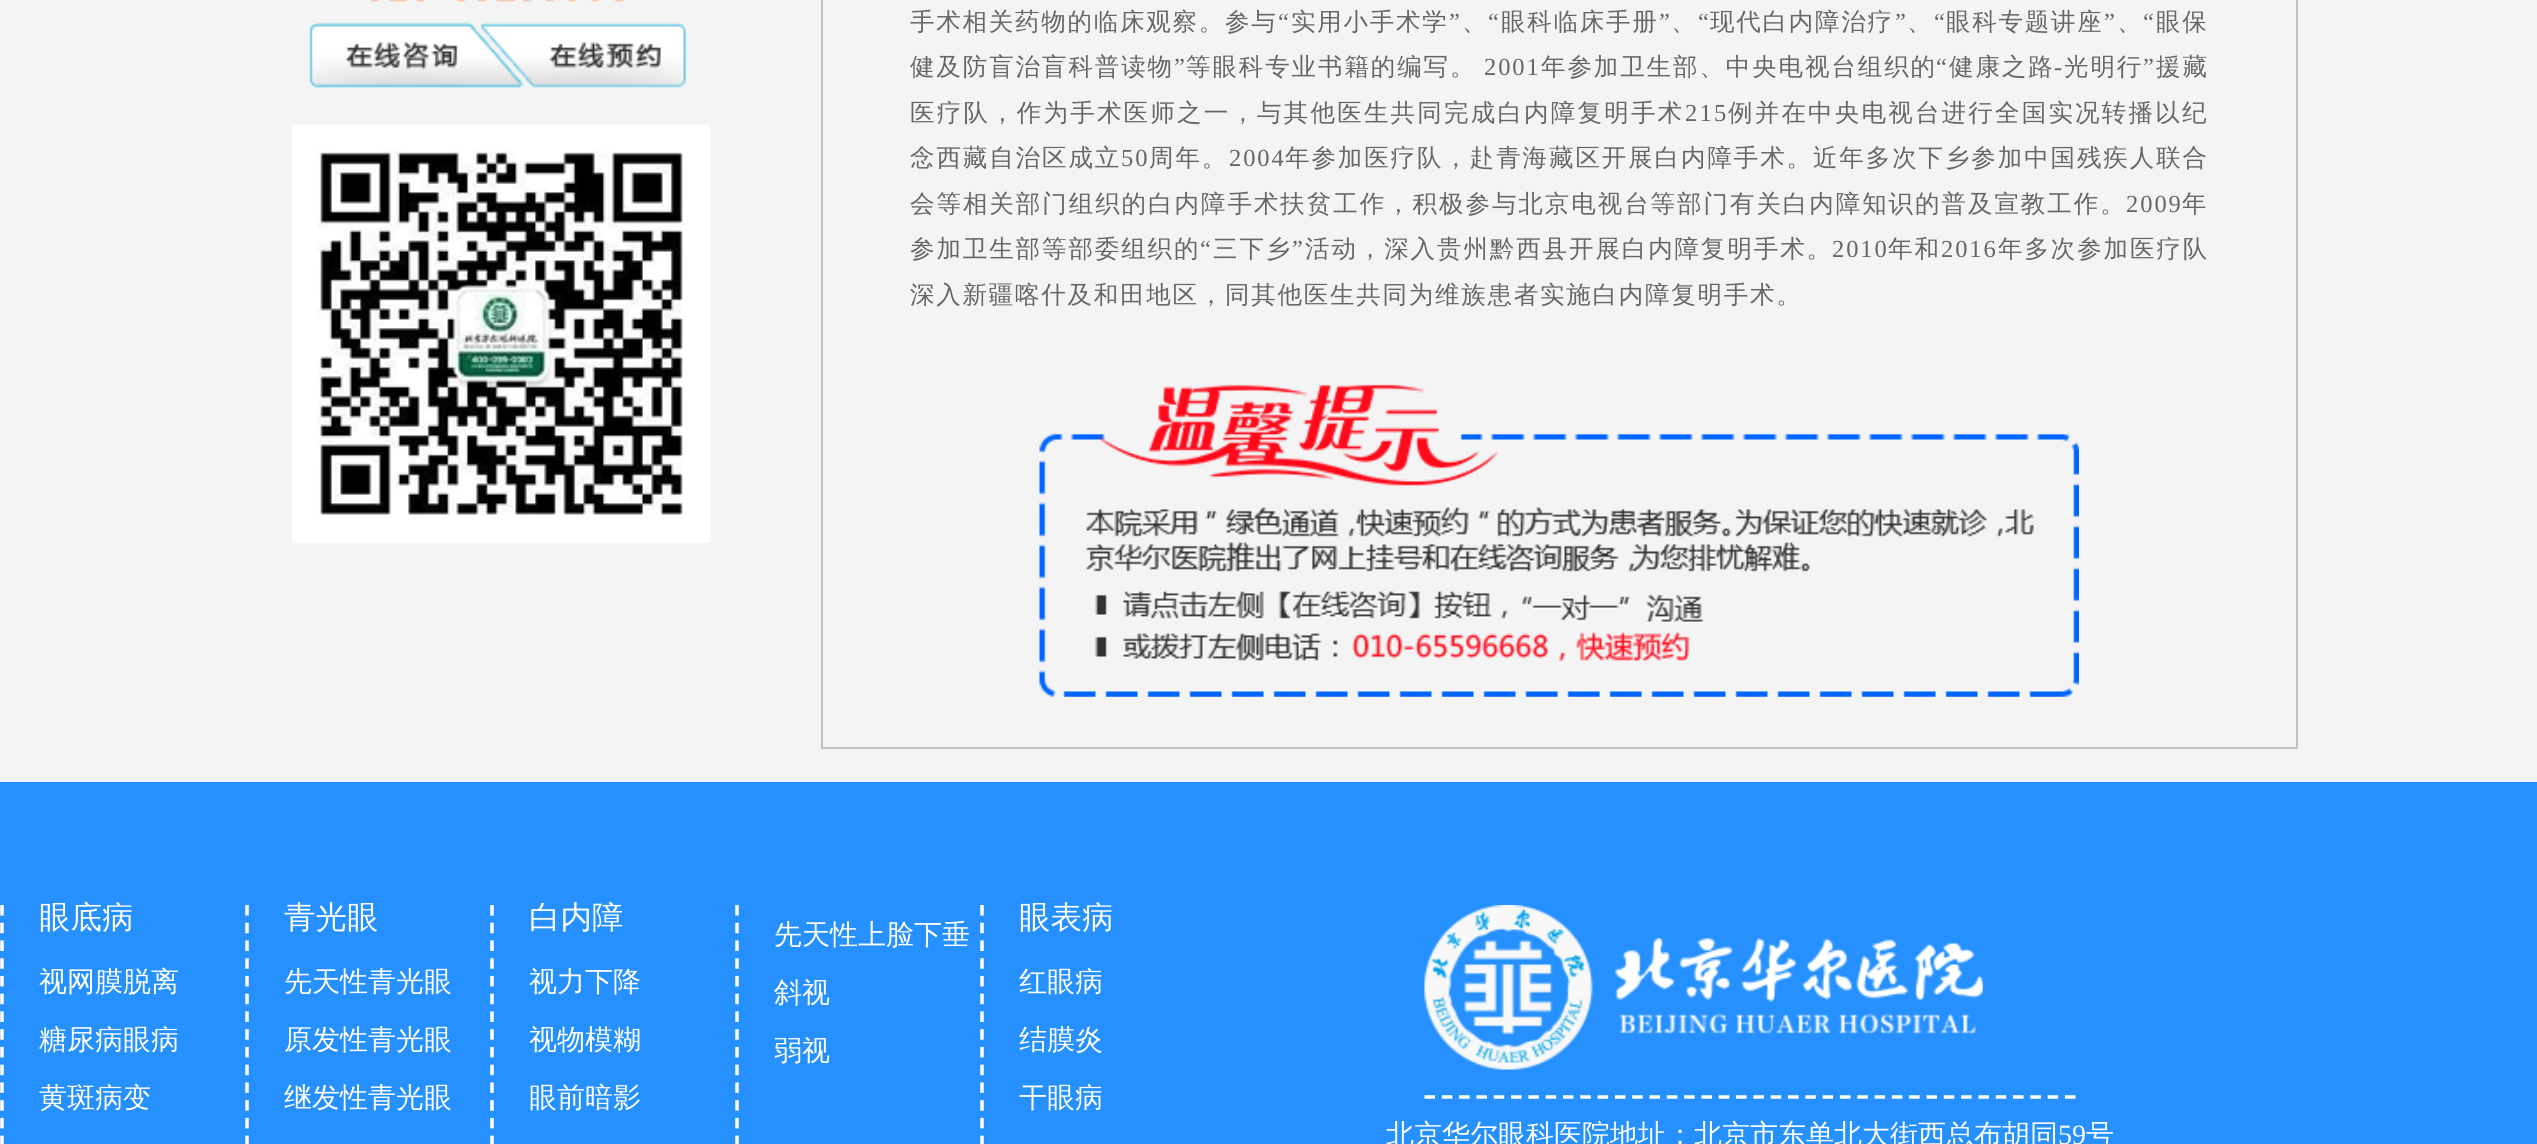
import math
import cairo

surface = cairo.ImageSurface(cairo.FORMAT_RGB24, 2537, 1144)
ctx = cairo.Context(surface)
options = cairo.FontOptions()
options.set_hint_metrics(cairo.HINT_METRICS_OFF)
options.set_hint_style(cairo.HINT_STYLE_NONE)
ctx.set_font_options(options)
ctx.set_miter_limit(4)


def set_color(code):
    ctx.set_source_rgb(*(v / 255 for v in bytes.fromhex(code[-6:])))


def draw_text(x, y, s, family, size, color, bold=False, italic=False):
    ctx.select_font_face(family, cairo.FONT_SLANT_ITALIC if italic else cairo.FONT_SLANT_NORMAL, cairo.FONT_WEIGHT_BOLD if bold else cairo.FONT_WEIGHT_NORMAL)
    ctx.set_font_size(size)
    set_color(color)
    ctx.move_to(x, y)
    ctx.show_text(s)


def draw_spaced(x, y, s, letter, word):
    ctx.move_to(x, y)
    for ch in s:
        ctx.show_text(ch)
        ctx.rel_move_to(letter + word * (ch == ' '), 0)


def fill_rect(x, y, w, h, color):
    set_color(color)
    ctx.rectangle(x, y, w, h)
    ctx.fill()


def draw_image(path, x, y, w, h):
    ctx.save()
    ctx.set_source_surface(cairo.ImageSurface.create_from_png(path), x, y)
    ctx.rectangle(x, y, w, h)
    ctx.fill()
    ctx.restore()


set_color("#f4f4f4")
ctx.paint()
draw_image("assets/img1.png", 292, 0, 419, 543)
ctx.rectangle(822, -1, 1475, 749)
set_color("#c2c2c2")
ctx.stroke()
ctx.select_font_face("WenQuanYi Zen Hei Medium")
ctx.set_font_size(24.5)
set_color("#666666")
draw_spaced(910, 30, "手术相关药物的临床观察。参与", 1.75, 0)
ctx.select_font_face("Liberation Serif")
draw_spaced(1278, 30, "“", 1.75, 0)
ctx.select_font_face("WenQuanYi Zen Hei Medium")
draw_spaced(1291, 30, "实用小手术学", 1.75, 0)
ctx.select_font_face("Liberation Serif")
draw_spaced(1449, 30, "”", 1.75, 0)
draw_spaced(1488, 30, "“", 1.75, 0)
ctx.select_font_face("WenQuanYi Zen Hei Medium")
draw_spaced(1501, 30, "眼科临床手册", 1.75, 0)
ctx.select_font_face("Liberation Serif")
draw_spaced(1659, 30, "”", 1.75, 0)
draw_spaced(1698, 30, "“", 1.75, 0)
ctx.select_font_face("WenQuanYi Zen Hei Medium")
draw_spaced(1710, 30, "现代白内障治疗", 1.75, 0)
ctx.select_font_face("Liberation Serif")
draw_spaced(1895, 30, "”", 1.75, 0)
draw_spaced(1934, 30, "“", 1.75, 0)
ctx.select_font_face("WenQuanYi Zen Hei Medium")
draw_spaced(1946, 30, "眼科专题讲座", 1.75, 0)
ctx.select_font_face("Liberation Serif")
draw_spaced(2104, 30, "”", 1.75, 0)
draw_spaced(2143, 30, "“", 1.75, 0)
ctx.select_font_face("WenQuanYi Zen Hei Medium")
draw_spaced(2156, 30, "眼保", 1.75, 0)
draw_spaced(1462, 30, "、", 1.75, 0)
draw_spaced(1671, 30, "、", 1.75, 0)
draw_spaced(1907, 30, "、", 1.75, 0)
draw_spaced(2117, 30, "、", 1.75, 0)
draw_spaced(910, 75, "健及防盲治盲科普读物", 1.9, 0)
ctx.select_font_face("Liberation Serif")
draw_spaced(1174, 75, "”", 1.9, 0)
ctx.select_font_face("WenQuanYi Zen Hei Medium")
draw_spaced(1186, 75, "等眼科专业书籍的编写。", 1.9, 0)
ctx.select_font_face("Liberation Serif")
draw_spaced(1484, 75, "2001", 1.9, 0)
ctx.select_font_face("WenQuanYi Zen Hei Medium")
draw_spaced(1541, 75, "年参加卫生部、中央电视台组织的", 1.9, 0)
ctx.select_font_face("Liberation Serif")
draw_spaced(1936, 75, "“", 1.9, 0)
ctx.select_font_face("WenQuanYi Zen Hei Medium")
draw_spaced(1949, 75, "健康之路", 1.9, 0)
draw_spaced(2064, 75, "光明行", 1.9, 0)
ctx.select_font_face("Liberation Serif")
draw_spaced(2143, 75, "”", 1.9, 0)
ctx.select_font_face("WenQuanYi Zen Hei Medium")
draw_spaced(2156, 75, "援藏", 1.9, 0)
ctx.select_font_face("Liberation Serif")
draw_spaced(2054, 75, "-", 1.9, 0)
ctx.select_font_face("WenQuanYi Zen Hei Medium")
draw_spaced(910, 121, "医疗队，作为手术医师之一，与其他医生共同完成白内障复明手术", 2.2, 0)
ctx.select_font_face("Liberation Serif")
draw_spaced(1685, 121, "215", 2.2, 0)
ctx.select_font_face("WenQuanYi Zen Hei Medium")
draw_spaced(1728, 121, "例并在中央电视台进行全国实况转播以纪", 2.2, 0)
draw_spaced(910, 166, "念西藏自治区成立", 1.9, 0)
ctx.select_font_face("Liberation Serif")
draw_spaced(1121, 166, "50", 1.9, 0)
ctx.select_font_face("WenQuanYi Zen Hei Medium")
draw_spaced(1149, 166, "周年。", 1.9, 0)
ctx.select_font_face("Liberation Serif")
draw_spaced(1229, 166, "2004", 1.9, 0)
ctx.select_font_face("WenQuanYi Zen Hei Medium")
draw_spaced(1285, 166, "年参加医疗队，赴青海藏区开展白内障手术。近年多次下乡参加中国残疾人联合", 1.9, 0)
draw_spaced(910, 212, "会等相关部门组织的白内障手术扶贫工作，积极参与北京电视台等部门有关白内障知识的普及宣教工作。", 1.95, 0)
ctx.select_font_face("Liberation Serif")
draw_spaced(2126, 212, "2009", 1.95, 0)
ctx.select_font_face("WenQuanYi Zen Hei Medium")
draw_spaced(2182, 212, "年", 1.95, 0)
draw_spaced(910, 257, "参加卫生部等部委组织的", 1.9, 0)
ctx.select_font_face("Liberation Serif")
draw_spaced(1200, 257, "“", 1.9, 0)
ctx.select_font_face("WenQuanYi Zen Hei Medium")
draw_spaced(1213, 257, "三下乡", 1.9, 0)
ctx.select_font_face("Liberation Serif")
draw_spaced(1292, 257, "”", 1.9, 0)
ctx.select_font_face("WenQuanYi Zen Hei Medium")
draw_spaced(1305, 257, "活动，深入贵州黔西县开展白内障复明手术。", 1.9, 0)
ctx.select_font_face("Liberation Serif")
draw_spaced(1832, 257, "2010", 1.9, 0)
ctx.select_font_face("WenQuanYi Zen Hei Medium")
draw_spaced(1888, 257, "年和", 1.9, 0)
ctx.select_font_face("Liberation Serif")
draw_spaced(1941, 257, "2016", 1.9, 0)
ctx.select_font_face("WenQuanYi Zen Hei Medium")
draw_spaced(1998, 257, "年多次参加医疗队", 1.9, 0)
draw_spaced(910, 303, "深入新疆喀什及和田地区，同其他医生共同为维族患者实施白内障复明手术。", 1.75, 0)
draw_image("assets/img2.png", 1039, 384, 1040, 313)
fill_rect(0, 782, 2537, 362, "#2590fe")
ctx.new_path()
ctx.move_to(2, 905)
ctx.line_to(2, 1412)
set_color("#ffffff")
ctx.set_line_width(3.5)
ctx.set_dash([10.5, 7.24])
ctx.stroke()
draw_text(39, 928, "眼底病", "WenQuanYi Zen Hei Medium", 31.5, "#ffffff")
draw_text(39, 991, "视网膜脱离", "WenQuanYi Zen Hei Medium", 28, "#ffffff")
draw_text(39, 1049, "糖尿病眼病", "WenQuanYi Zen Hei Medium", 28, "#ffffff")
draw_text(39, 1107, "黄斑病变", "WenQuanYi Zen Hei Medium", 28, "#ffffff")
ctx.new_path()
ctx.move_to(247, 905)
ctx.line_to(247, 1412)
ctx.stroke()
draw_text(284, 928, "青光眼", "WenQuanYi Zen Hei Medium", 31.5, "#ffffff")
draw_text(284, 991, "先天性青光眼", "WenQuanYi Zen Hei Medium", 28, "#ffffff")
draw_text(284, 1049, "原发性青光眼", "WenQuanYi Zen Hei Medium", 28, "#ffffff")
draw_text(284, 1107, "继发性青光眼", "WenQuanYi Zen Hei Medium", 28, "#ffffff")
ctx.new_path()
ctx.move_to(492, 905)
ctx.line_to(492, 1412)
ctx.stroke()
draw_text(529, 928, "白内障", "WenQuanYi Zen Hei Medium", 31.5, "#ffffff")
draw_text(529, 991, "视力下降", "WenQuanYi Zen Hei Medium", 28, "#ffffff")
draw_text(529, 1049, "视物模糊", "WenQuanYi Zen Hei Medium", 28, "#ffffff")
draw_text(529, 1107, "眼前暗影", "WenQuanYi Zen Hei Medium", 28, "#ffffff")
ctx.new_path()
ctx.move_to(737, 905)
ctx.line_to(737, 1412)
ctx.stroke()
draw_text(774, 944, "先天性上脸下垂", "WenQuanYi Zen Hei Medium", 28, "#ffffff")
draw_text(774, 1002, "斜视", "WenQuanYi Zen Hei Medium", 28, "#ffffff")
draw_text(774, 1060, "弱视", "WenQuanYi Zen Hei Medium", 28, "#ffffff")
ctx.new_path()
ctx.move_to(982, 905)
ctx.line_to(982, 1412)
ctx.stroke()
draw_text(1019, 928, "眼表病", "WenQuanYi Zen Hei Medium", 31.5, "#ffffff")
draw_text(1019, 991, "红眼病", "WenQuanYi Zen Hei Medium", 28, "#ffffff")
draw_text(1019, 1049, "结膜炎", "WenQuanYi Zen Hei Medium", 28, "#ffffff")
draw_text(1019, 1107, "干眼病", "WenQuanYi Zen Hei Medium", 28, "#ffffff")
ctx.new_path()
ctx.move_to(1424.5, 1097)
ctx.line_to(2075.5, 1097)
ctx.set_dash([10.5, 6.81])
ctx.stroke()
draw_image("assets/img3.png", 1424, 905, 559, 165)
draw_text(1386, 1144, "北京华尔眼科医院地址：北京市东单北大街西总布胡同", "WenQuanYi Zen Hei Medium", 28, "#ffffff")
draw_text(2058, 1144, "59", "Liberation Serif", 28, "#ffffff")
draw_text(2086, 1144, "号", "WenQuanYi Zen Hei Medium", 28, "#ffffff")
surface.write_to_png("output.png")
